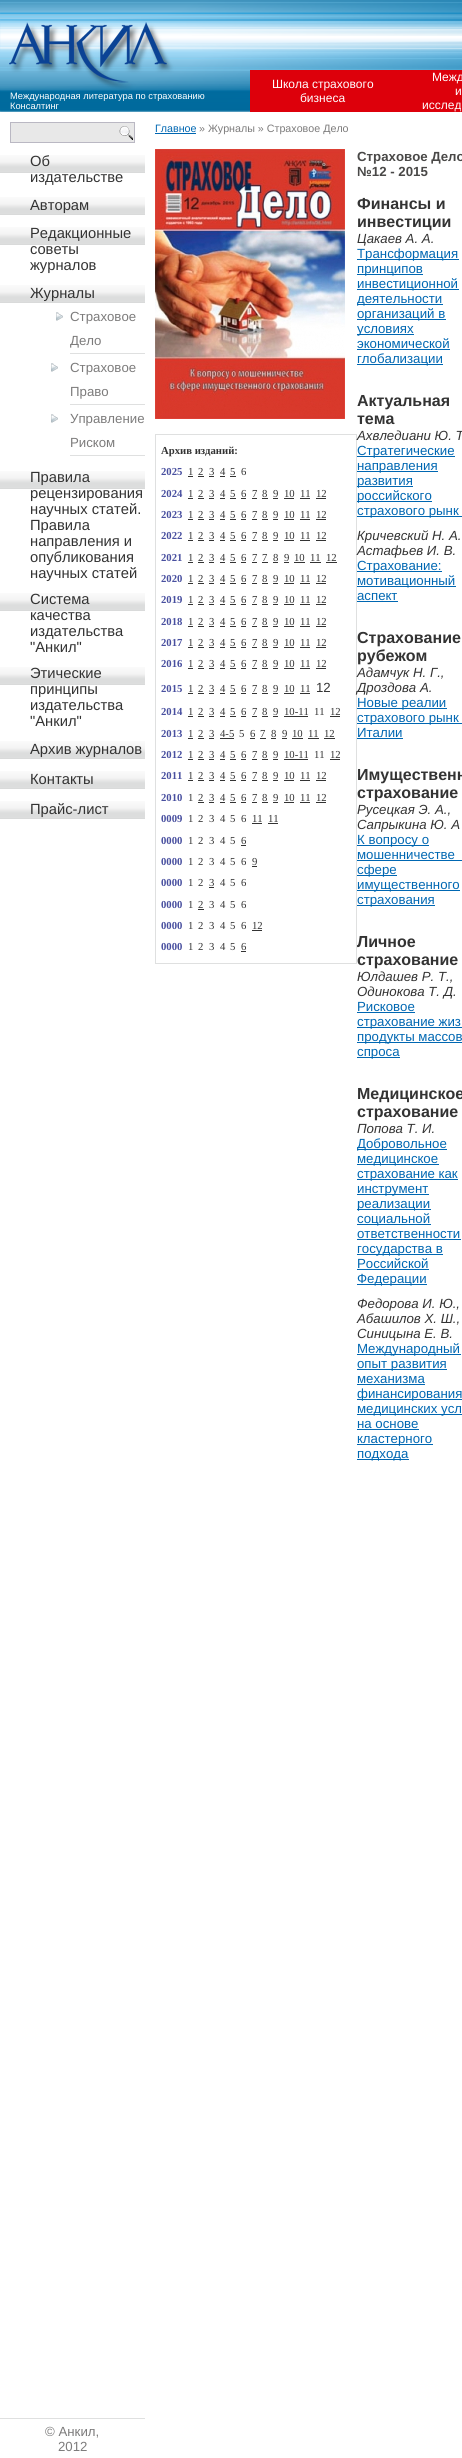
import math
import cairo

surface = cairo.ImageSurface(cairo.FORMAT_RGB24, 462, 2458)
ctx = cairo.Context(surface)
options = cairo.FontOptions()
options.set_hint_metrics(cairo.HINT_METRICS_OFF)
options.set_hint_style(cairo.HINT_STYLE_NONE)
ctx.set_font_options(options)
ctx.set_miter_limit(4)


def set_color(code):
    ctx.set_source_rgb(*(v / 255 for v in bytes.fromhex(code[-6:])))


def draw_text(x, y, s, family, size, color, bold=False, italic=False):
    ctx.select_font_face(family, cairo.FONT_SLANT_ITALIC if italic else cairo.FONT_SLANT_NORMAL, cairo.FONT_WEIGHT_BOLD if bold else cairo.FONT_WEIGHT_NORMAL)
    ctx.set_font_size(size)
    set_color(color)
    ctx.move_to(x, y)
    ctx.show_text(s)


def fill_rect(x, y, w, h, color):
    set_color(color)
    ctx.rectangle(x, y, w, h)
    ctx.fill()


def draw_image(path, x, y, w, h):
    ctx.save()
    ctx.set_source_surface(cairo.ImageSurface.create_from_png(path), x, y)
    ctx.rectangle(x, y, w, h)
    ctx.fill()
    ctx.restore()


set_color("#ffffff")
ctx.paint()
draw_image("assets/img1.png", 0, 111, 1, 1)
draw_image("assets/img2.png", 0, 0, 250, 112)
draw_text(10, 99, "Международная литература по страхованию", "Liberation Sans", 9.3, "#ffffff")
draw_text(10, 109, "Консалтинг", "Liberation Sans", 9.3, "#ffffff")
draw_image("assets/img3.png", 250, 0, 212, 70)
fill_rect(250, 70, 212, 42, "#dd000b")
draw_text(272, 88, "Школа страхового", "Liberation Sans", 12, "#ffffff")
draw_text(300, 102, "бизнеса", "Liberation Sans", 12, "#ffffff")
draw_text(432, 81, "Межд", "Liberation Sans", 12, "#ffffff")
draw_text(455, 95, "и", "Liberation Sans", 12, "#ffffff")
draw_text(422, 109, "исслед", "Liberation Sans", 12, "#ffffff")
set_color("#e8e8e8")
ctx.rectangle(10.5, 122.5, 124, 20)
ctx.fill_preserve()
set_color("#bab8c3")
ctx.set_line_width(1)
ctx.stroke()
draw_image("assets/img4.png", 119, 126, 14, 14)
draw_image("assets/img5.png", 0, 155, 145, 18)
draw_text(30, 166, "Об", "Liberation Sans", 14.75, "#333333")
draw_text(30, 182, "издательстве", "Liberation Sans", 14.75, "#333333")
draw_image("assets/img5.png", 0, 197, 145, 18)
draw_text(30, 210, "Авторам", "Liberation Sans", 14.75, "#333333")
draw_image("assets/img5.png", 0, 227, 145, 18)
draw_text(30, 238, "Редакционные", "Liberation Sans", 14.75, "#333333")
draw_text(30, 254, "советы", "Liberation Sans", 14.75, "#333333")
draw_text(30, 270, "журналов", "Liberation Sans", 14.75, "#333333")
draw_image("assets/img5.png", 0, 285, 145, 18)
draw_text(30, 298, "Журналы", "Liberation Sans", 14.75, "#333333")
fill_rect(70, 353, 75, 1, "#dfe0e0")
draw_image("assets/img6.png", 56, 312, 7, 9)
draw_text(70, 321, "Страховое", "Liberation Sans", 13.25, "#7c7b7b")
draw_text(70, 345, "Дело", "Liberation Sans", 13.25, "#7c7b7b")
fill_rect(70, 404, 75, 1, "#dfe0e0")
draw_image("assets/img6.png", 51, 363, 7, 9)
draw_text(70, 372, "Страховое", "Liberation Sans", 13.25, "#7c7b7b")
draw_text(70, 396, "Право", "Liberation Sans", 13.25, "#7c7b7b")
fill_rect(70, 455, 75, 1, "#dfe0e0")
draw_image("assets/img6.png", 51, 414, 7, 9)
draw_text(70, 423, "Управление", "Liberation Sans", 13.25, "#7c7b7b")
draw_text(70, 447, "Риском", "Liberation Sans", 13.25, "#7c7b7b")
draw_image("assets/img5.png", 0, 471, 145, 18)
draw_text(30, 482, "Правила", "Liberation Sans", 14.75, "#333333")
draw_text(30, 498, "рецензирования", "Liberation Sans", 14.75, "#333333")
draw_text(30, 514, "научных статей.", "Liberation Sans", 14.75, "#333333")
draw_text(30, 530, "Правила", "Liberation Sans", 14.75, "#333333")
draw_text(30, 546, "направления и", "Liberation Sans", 14.75, "#333333")
draw_text(30, 562, "опубликования", "Liberation Sans", 14.75, "#333333")
draw_text(30, 578, "научных статей", "Liberation Sans", 14.75, "#333333")
draw_image("assets/img5.png", 0, 593, 145, 18)
draw_text(30, 604, "Система", "Liberation Sans", 14.75, "#333333")
draw_text(30, 620, "качества", "Liberation Sans", 14.75, "#333333")
draw_text(30, 636, "издательства", "Liberation Sans", 14.75, "#333333")
draw_text(30, 652, "\"Анкил\"", "Liberation Sans", 14.75, "#333333")
draw_image("assets/img5.png", 0, 667, 145, 18)
draw_text(30, 678, "Этические", "Liberation Sans", 14.75, "#333333")
draw_text(30, 694, "принципы", "Liberation Sans", 14.75, "#333333")
draw_text(30, 710, "издательства", "Liberation Sans", 14.75, "#333333")
draw_text(30, 726, "\"Анкил\"", "Liberation Sans", 14.75, "#333333")
draw_image("assets/img5.png", 0, 741, 145, 18)
draw_text(30, 754, "Архив журналов", "Liberation Sans", 14.75, "#333333")
draw_image("assets/img5.png", 0, 771, 145, 18)
draw_text(30, 784, "Контакты", "Liberation Sans", 14.75, "#333333")
draw_image("assets/img5.png", 0, 801, 145, 18)
draw_text(30, 814, "Прайс-лист", "Liberation Sans", 14.75, "#333333")
fill_rect(0, 2418, 145, 1, "#dfe0e0")
draw_text(45, 2436, "© Анкил,", "Liberation Sans", 13.25, "#7c7b7b")
draw_text(58, 2451, "2012", "Liberation Sans", 13.25, "#7c7b7b")
draw_text(155, 132, "Главное", "Liberation Sans", 10.7, "#0067b2")
fill_rect(155, 133, 41, 1, "#0067b2")
draw_text(199, 132, "» Журналы » Страховое Дело", "Liberation Sans", 10.7, "#7c7b7b")
draw_image("assets/img7.png", 155, 149, 190, 270)
ctx.rectangle(155.5, 434.5, 201, 529)
set_color("#dfe0e0")
ctx.stroke()
draw_text(161, 454, "Архив изданий:", "Liberation Serif", 10.7, "#333333", bold=True)
draw_text(161, 475, "2025", "Liberation Serif", 10.7, "#484f9f", bold=True)
draw_text(188, 475, "1", "Liberation Serif", 10.7, "#333333")
fill_rect(188, 476, 5, 1, "#333333")
draw_text(198, 475, "2", "Liberation Serif", 10.7, "#333333")
fill_rect(198, 476, 6, 1, "#333333")
draw_text(209, 475, "3", "Liberation Serif", 10.7, "#333333")
fill_rect(209, 476, 5, 1, "#333333")
draw_text(220, 475, "4", "Liberation Serif", 10.7, "#333333")
fill_rect(220, 476, 5, 1, "#333333")
draw_text(230, 475, "5", "Liberation Serif", 10.7, "#333333")
fill_rect(230, 476, 6, 1, "#333333")
draw_text(241, 475, "6", "Liberation Serif", 10.7, "#333333")
draw_text(161, 497, "2024", "Liberation Serif", 10.7, "#484f9f", bold=True)
draw_text(188, 497, "1", "Liberation Serif", 10.7, "#333333")
fill_rect(188, 498, 5, 1, "#333333")
draw_text(198, 497, "2", "Liberation Serif", 10.7, "#333333")
fill_rect(198, 498, 6, 1, "#333333")
draw_text(209, 497, "3", "Liberation Serif", 10.7, "#333333")
fill_rect(209, 498, 5, 1, "#333333")
draw_text(220, 497, "4", "Liberation Serif", 10.7, "#333333")
fill_rect(220, 498, 5, 1, "#333333")
draw_text(230, 497, "5", "Liberation Serif", 10.7, "#333333")
fill_rect(230, 498, 6, 1, "#333333")
draw_text(241, 497, "6", "Liberation Serif", 10.7, "#333333")
fill_rect(241, 498, 5, 1, "#333333")
draw_text(252, 497, "7", "Liberation Serif", 10.7, "#333333")
fill_rect(252, 498, 5, 1, "#333333")
draw_text(262, 497, "8", "Liberation Serif", 10.7, "#333333")
fill_rect(262, 498, 6, 1, "#333333")
draw_text(273, 497, "9", "Liberation Serif", 10.7, "#333333")
fill_rect(273, 498, 5, 1, "#333333")
draw_text(284, 497, "10", "Liberation Serif", 10.7, "#333333")
fill_rect(284, 498, 10, 1, "#333333")
draw_text(300, 497, "11", "Liberation Serif", 10.7, "#333333")
fill_rect(300, 498, 10, 1, "#333333")
draw_text(316, 497, "12", "Liberation Serif", 10.7, "#333333")
fill_rect(316, 498, 10, 1, "#333333")
draw_text(161, 518, "2023", "Liberation Serif", 10.7, "#484f9f", bold=True)
draw_text(188, 518, "1", "Liberation Serif", 10.7, "#333333")
fill_rect(188, 519, 5, 1, "#333333")
draw_text(198, 518, "2", "Liberation Serif", 10.7, "#333333")
fill_rect(198, 519, 6, 1, "#333333")
draw_text(209, 518, "3", "Liberation Serif", 10.7, "#333333")
fill_rect(209, 519, 5, 1, "#333333")
draw_text(220, 518, "4", "Liberation Serif", 10.7, "#333333")
fill_rect(220, 519, 5, 1, "#333333")
draw_text(230, 518, "5", "Liberation Serif", 10.7, "#333333")
fill_rect(230, 519, 6, 1, "#333333")
draw_text(241, 518, "6", "Liberation Serif", 10.7, "#333333")
fill_rect(241, 519, 5, 1, "#333333")
draw_text(252, 518, "7", "Liberation Serif", 10.7, "#333333")
fill_rect(252, 519, 5, 1, "#333333")
draw_text(262, 518, "8", "Liberation Serif", 10.7, "#333333")
fill_rect(262, 519, 6, 1, "#333333")
draw_text(273, 518, "9", "Liberation Serif", 10.7, "#333333")
fill_rect(273, 519, 5, 1, "#333333")
draw_text(284, 518, "10", "Liberation Serif", 10.7, "#333333")
fill_rect(284, 519, 10, 1, "#333333")
draw_text(300, 518, "11", "Liberation Serif", 10.7, "#333333")
fill_rect(300, 519, 10, 1, "#333333")
draw_text(316, 518, "12", "Liberation Serif", 10.7, "#333333")
fill_rect(316, 519, 10, 1, "#333333")
draw_text(161, 539, "2022", "Liberation Serif", 10.7, "#484f9f", bold=True)
draw_text(188, 539, "1", "Liberation Serif", 10.7, "#333333")
fill_rect(188, 540, 5, 1, "#333333")
draw_text(198, 539, "2", "Liberation Serif", 10.7, "#333333")
fill_rect(198, 540, 6, 1, "#333333")
draw_text(209, 539, "3", "Liberation Serif", 10.7, "#333333")
fill_rect(209, 540, 5, 1, "#333333")
draw_text(220, 539, "4", "Liberation Serif", 10.7, "#333333")
fill_rect(220, 540, 5, 1, "#333333")
draw_text(230, 539, "5", "Liberation Serif", 10.7, "#333333")
fill_rect(230, 540, 6, 1, "#333333")
draw_text(241, 539, "6", "Liberation Serif", 10.7, "#333333")
fill_rect(241, 540, 5, 1, "#333333")
draw_text(252, 539, "7", "Liberation Serif", 10.7, "#333333")
fill_rect(252, 540, 5, 1, "#333333")
draw_text(262, 539, "8", "Liberation Serif", 10.7, "#333333")
fill_rect(262, 540, 6, 1, "#333333")
draw_text(273, 539, "9", "Liberation Serif", 10.7, "#333333")
fill_rect(273, 540, 5, 1, "#333333")
draw_text(284, 539, "10", "Liberation Serif", 10.7, "#333333")
fill_rect(284, 540, 10, 1, "#333333")
draw_text(300, 539, "11", "Liberation Serif", 10.7, "#333333")
fill_rect(300, 540, 10, 1, "#333333")
draw_text(316, 539, "12", "Liberation Serif", 10.7, "#333333")
fill_rect(316, 540, 10, 1, "#333333")
draw_text(161, 561, "2021", "Liberation Serif", 10.7, "#484f9f", bold=True)
draw_text(188, 561, "1", "Liberation Serif", 10.7, "#333333")
fill_rect(188, 562, 5, 1, "#333333")
draw_text(198, 561, "2", "Liberation Serif", 10.7, "#333333")
fill_rect(198, 562, 6, 1, "#333333")
draw_text(209, 561, "3", "Liberation Serif", 10.7, "#333333")
fill_rect(209, 562, 5, 1, "#333333")
draw_text(220, 561, "4", "Liberation Serif", 10.7, "#333333")
fill_rect(220, 562, 5, 1, "#333333")
draw_text(230, 561, "5", "Liberation Serif", 10.7, "#333333")
fill_rect(230, 562, 6, 1, "#333333")
draw_text(241, 561, "6", "Liberation Serif", 10.7, "#333333")
fill_rect(241, 562, 5, 1, "#333333")
draw_text(252, 561, "7", "Liberation Serif", 10.7, "#333333")
fill_rect(252, 562, 5, 1, "#333333")
draw_text(262, 561, "7", "Liberation Serif", 10.7, "#333333")
fill_rect(262, 562, 6, 1, "#333333")
draw_text(273, 561, "8", "Liberation Serif", 10.7, "#333333")
fill_rect(273, 562, 5, 1, "#333333")
draw_text(284, 561, "9", "Liberation Serif", 10.7, "#333333")
fill_rect(284, 562, 5, 1, "#333333")
draw_text(294, 561, "10", "Liberation Serif", 10.7, "#333333")
fill_rect(294, 562, 11, 1, "#333333")
draw_text(310, 561, "11", "Liberation Serif", 10.7, "#333333")
fill_rect(310, 562, 11, 1, "#333333")
draw_text(326, 561, "12", "Liberation Serif", 10.7, "#333333")
fill_rect(326, 562, 11, 1, "#333333")
draw_text(161, 582, "2020", "Liberation Serif", 10.7, "#484f9f", bold=True)
draw_text(188, 582, "1", "Liberation Serif", 10.7, "#333333")
fill_rect(188, 583, 5, 1, "#333333")
draw_text(198, 582, "2", "Liberation Serif", 10.7, "#333333")
fill_rect(198, 583, 6, 1, "#333333")
draw_text(209, 582, "3", "Liberation Serif", 10.7, "#333333")
fill_rect(209, 583, 5, 1, "#333333")
draw_text(220, 582, "4", "Liberation Serif", 10.7, "#333333")
fill_rect(220, 583, 5, 1, "#333333")
draw_text(230, 582, "5", "Liberation Serif", 10.7, "#333333")
fill_rect(230, 583, 6, 1, "#333333")
draw_text(241, 582, "6", "Liberation Serif", 10.7, "#333333")
fill_rect(241, 583, 5, 1, "#333333")
draw_text(252, 582, "7", "Liberation Serif", 10.7, "#333333")
fill_rect(252, 583, 5, 1, "#333333")
draw_text(262, 582, "8", "Liberation Serif", 10.7, "#333333")
fill_rect(262, 583, 6, 1, "#333333")
draw_text(273, 582, "9", "Liberation Serif", 10.7, "#333333")
fill_rect(273, 583, 5, 1, "#333333")
draw_text(284, 582, "10", "Liberation Serif", 10.7, "#333333")
fill_rect(284, 583, 10, 1, "#333333")
draw_text(300, 582, "11", "Liberation Serif", 10.7, "#333333")
fill_rect(300, 583, 10, 1, "#333333")
draw_text(316, 582, "12", "Liberation Serif", 10.7, "#333333")
fill_rect(316, 583, 10, 1, "#333333")
draw_text(161, 603, "2019", "Liberation Serif", 10.7, "#484f9f", bold=True)
draw_text(188, 603, "1", "Liberation Serif", 10.7, "#333333")
fill_rect(188, 604, 5, 1, "#333333")
draw_text(198, 603, "2", "Liberation Serif", 10.7, "#333333")
fill_rect(198, 604, 6, 1, "#333333")
draw_text(209, 603, "3", "Liberation Serif", 10.7, "#333333")
fill_rect(209, 604, 5, 1, "#333333")
draw_text(220, 603, "4", "Liberation Serif", 10.7, "#333333")
fill_rect(220, 604, 5, 1, "#333333")
draw_text(230, 603, "5", "Liberation Serif", 10.7, "#333333")
fill_rect(230, 604, 6, 1, "#333333")
draw_text(241, 603, "6", "Liberation Serif", 10.7, "#333333")
fill_rect(241, 604, 5, 1, "#333333")
draw_text(252, 603, "7", "Liberation Serif", 10.7, "#333333")
fill_rect(252, 604, 5, 1, "#333333")
draw_text(262, 603, "8", "Liberation Serif", 10.7, "#333333")
fill_rect(262, 604, 6, 1, "#333333")
draw_text(273, 603, "9", "Liberation Serif", 10.7, "#333333")
fill_rect(273, 604, 5, 1, "#333333")
draw_text(284, 603, "10", "Liberation Serif", 10.7, "#333333")
fill_rect(284, 604, 10, 1, "#333333")
draw_text(300, 603, "11", "Liberation Serif", 10.7, "#333333")
fill_rect(300, 604, 10, 1, "#333333")
draw_text(316, 603, "12", "Liberation Serif", 10.7, "#333333")
fill_rect(316, 604, 10, 1, "#333333")
draw_text(161, 625, "2018", "Liberation Serif", 10.7, "#484f9f", bold=True)
draw_text(188, 625, "1", "Liberation Serif", 10.7, "#333333")
fill_rect(188, 626, 5, 1, "#333333")
draw_text(198, 625, "2", "Liberation Serif", 10.7, "#333333")
fill_rect(198, 626, 6, 1, "#333333")
draw_text(209, 625, "3", "Liberation Serif", 10.7, "#333333")
fill_rect(209, 626, 5, 1, "#333333")
draw_text(220, 625, "4", "Liberation Serif", 10.7, "#333333")
fill_rect(220, 626, 5, 1, "#333333")
draw_text(230, 625, "5", "Liberation Serif", 10.7, "#333333")
fill_rect(230, 626, 6, 1, "#333333")
draw_text(241, 625, "6", "Liberation Serif", 10.7, "#333333")
fill_rect(241, 626, 5, 1, "#333333")
draw_text(252, 625, "7", "Liberation Serif", 10.7, "#333333")
fill_rect(252, 626, 5, 1, "#333333")
draw_text(262, 625, "8", "Liberation Serif", 10.7, "#333333")
fill_rect(262, 626, 6, 1, "#333333")
draw_text(273, 625, "9", "Liberation Serif", 10.7, "#333333")
fill_rect(273, 626, 5, 1, "#333333")
draw_text(284, 625, "10", "Liberation Serif", 10.7, "#333333")
fill_rect(284, 626, 10, 1, "#333333")
draw_text(300, 625, "11", "Liberation Serif", 10.7, "#333333")
fill_rect(300, 626, 10, 1, "#333333")
draw_text(316, 625, "12", "Liberation Serif", 10.7, "#333333")
fill_rect(316, 626, 10, 1, "#333333")
draw_text(161, 646, "2017", "Liberation Serif", 10.7, "#484f9f", bold=True)
draw_text(188, 646, "1", "Liberation Serif", 10.7, "#333333")
fill_rect(188, 647, 5, 1, "#333333")
draw_text(198, 646, "2", "Liberation Serif", 10.7, "#333333")
fill_rect(198, 647, 6, 1, "#333333")
draw_text(209, 646, "3", "Liberation Serif", 10.7, "#333333")
fill_rect(209, 647, 5, 1, "#333333")
draw_text(220, 646, "4", "Liberation Serif", 10.7, "#333333")
fill_rect(220, 647, 5, 1, "#333333")
draw_text(230, 646, "5", "Liberation Serif", 10.7, "#333333")
fill_rect(230, 647, 6, 1, "#333333")
draw_text(241, 646, "6", "Liberation Serif", 10.7, "#333333")
fill_rect(241, 647, 5, 1, "#333333")
draw_text(252, 646, "7", "Liberation Serif", 10.7, "#333333")
fill_rect(252, 647, 5, 1, "#333333")
draw_text(262, 646, "8", "Liberation Serif", 10.7, "#333333")
fill_rect(262, 647, 6, 1, "#333333")
draw_text(273, 646, "9", "Liberation Serif", 10.7, "#333333")
fill_rect(273, 647, 5, 1, "#333333")
draw_text(284, 646, "10", "Liberation Serif", 10.7, "#333333")
fill_rect(284, 647, 10, 1, "#333333")
draw_text(300, 646, "11", "Liberation Serif", 10.7, "#333333")
fill_rect(300, 647, 10, 1, "#333333")
draw_text(316, 646, "12", "Liberation Serif", 10.7, "#333333")
fill_rect(316, 647, 10, 1, "#333333")
draw_text(161, 667, "2016", "Liberation Serif", 10.7, "#484f9f", bold=True)
draw_text(188, 667, "1", "Liberation Serif", 10.7, "#333333")
fill_rect(188, 668, 5, 1, "#333333")
draw_text(198, 667, "2", "Liberation Serif", 10.7, "#333333")
fill_rect(198, 668, 6, 1, "#333333")
draw_text(209, 667, "3", "Liberation Serif", 10.7, "#333333")
fill_rect(209, 668, 5, 1, "#333333")
draw_text(220, 667, "4", "Liberation Serif", 10.7, "#333333")
fill_rect(220, 668, 5, 1, "#333333")
draw_text(230, 667, "5", "Liberation Serif", 10.7, "#333333")
fill_rect(230, 668, 6, 1, "#333333")
draw_text(241, 667, "6", "Liberation Serif", 10.7, "#333333")
fill_rect(241, 668, 5, 1, "#333333")
draw_text(252, 667, "7", "Liberation Serif", 10.7, "#333333")
fill_rect(252, 668, 5, 1, "#333333")
draw_text(262, 667, "8", "Liberation Serif", 10.7, "#333333")
fill_rect(262, 668, 6, 1, "#333333")
draw_text(273, 667, "9", "Liberation Serif", 10.7, "#333333")
fill_rect(273, 668, 5, 1, "#333333")
draw_text(284, 667, "10", "Liberation Serif", 10.7, "#333333")
fill_rect(284, 668, 10, 1, "#333333")
draw_text(300, 667, "11", "Liberation Serif", 10.7, "#333333")
fill_rect(300, 668, 10, 1, "#333333")
draw_text(316, 667, "12", "Liberation Serif", 10.7, "#333333")
fill_rect(316, 668, 10, 1, "#333333")
draw_text(161, 692, "2015", "Liberation Serif", 10.7, "#484f9f", bold=True)
draw_text(188, 692, "1", "Liberation Serif", 10.7, "#333333")
fill_rect(188, 693, 5, 1, "#333333")
draw_text(198, 692, "2", "Liberation Serif", 10.7, "#333333")
fill_rect(198, 693, 6, 1, "#333333")
draw_text(209, 692, "3", "Liberation Serif", 10.7, "#333333")
fill_rect(209, 693, 5, 1, "#333333")
draw_text(220, 692, "4", "Liberation Serif", 10.7, "#333333")
fill_rect(220, 693, 5, 1, "#333333")
draw_text(230, 692, "5", "Liberation Serif", 10.7, "#333333")
fill_rect(230, 693, 6, 1, "#333333")
draw_text(241, 692, "6", "Liberation Serif", 10.7, "#333333")
fill_rect(241, 693, 5, 1, "#333333")
draw_text(252, 692, "7", "Liberation Serif", 10.7, "#333333")
fill_rect(252, 693, 5, 1, "#333333")
draw_text(262, 692, "8", "Liberation Serif", 10.7, "#333333")
fill_rect(262, 693, 6, 1, "#333333")
draw_text(273, 692, "9", "Liberation Serif", 10.7, "#333333")
fill_rect(273, 693, 5, 1, "#333333")
draw_text(284, 692, "10", "Liberation Serif", 10.7, "#333333")
fill_rect(284, 693, 10, 1, "#333333")
draw_text(300, 692, "11", "Liberation Serif", 10.7, "#333333")
fill_rect(300, 693, 10, 1, "#333333")
draw_text(316, 692, "12", "Liberation Sans", 13.25, "#333333")
draw_text(161, 715, "2014", "Liberation Serif", 10.7, "#484f9f", bold=True)
draw_text(188, 715, "1", "Liberation Serif", 10.7, "#333333")
fill_rect(188, 716, 5, 1, "#333333")
draw_text(198, 715, "2", "Liberation Serif", 10.7, "#333333")
fill_rect(198, 716, 6, 1, "#333333")
draw_text(209, 715, "3", "Liberation Serif", 10.7, "#333333")
fill_rect(209, 716, 5, 1, "#333333")
draw_text(220, 715, "4", "Liberation Serif", 10.7, "#333333")
fill_rect(220, 716, 5, 1, "#333333")
draw_text(230, 715, "5", "Liberation Serif", 10.7, "#333333")
fill_rect(230, 716, 6, 1, "#333333")
draw_text(241, 715, "6", "Liberation Serif", 10.7, "#333333")
fill_rect(241, 716, 5, 1, "#333333")
draw_text(252, 715, "7", "Liberation Serif", 10.7, "#333333")
fill_rect(252, 716, 5, 1, "#333333")
draw_text(262, 715, "8", "Liberation Serif", 10.7, "#333333")
fill_rect(262, 716, 6, 1, "#333333")
draw_text(273, 715, "9", "Liberation Serif", 10.7, "#333333")
fill_rect(273, 716, 5, 1, "#333333")
draw_text(284, 715, "10-11", "Liberation Serif", 10.7, "#333333")
fill_rect(284, 716, 24, 1, "#333333")
draw_text(314, 715, "11", "Liberation Serif", 10.7, "#333333")
draw_text(330, 715, "12", "Liberation Serif", 10.7, "#333333")
fill_rect(330, 716, 10, 1, "#333333")
draw_text(161, 737, "2013", "Liberation Serif", 10.7, "#484f9f", bold=True)
draw_text(188, 737, "1", "Liberation Serif", 10.7, "#333333")
fill_rect(188, 738, 5, 1, "#333333")
draw_text(198, 737, "2", "Liberation Serif", 10.7, "#333333")
fill_rect(198, 738, 6, 1, "#333333")
draw_text(209, 737, "3", "Liberation Serif", 10.7, "#333333")
fill_rect(209, 738, 5, 1, "#333333")
draw_text(220, 737, "4-5", "Liberation Serif", 10.7, "#333333")
fill_rect(220, 738, 14, 1, "#333333")
draw_text(239, 737, "5", "Liberation Serif", 10.7, "#333333")
draw_text(250, 737, "6", "Liberation Serif", 10.7, "#333333")
fill_rect(250, 738, 5, 1, "#333333")
draw_text(260, 737, "7", "Liberation Serif", 10.7, "#333333")
fill_rect(260, 738, 6, 1, "#333333")
draw_text(271, 737, "8", "Liberation Serif", 10.7, "#333333")
fill_rect(271, 738, 5, 1, "#333333")
draw_text(282, 737, "9", "Liberation Serif", 10.7, "#333333")
fill_rect(282, 738, 5, 1, "#333333")
draw_text(292, 737, "10", "Liberation Serif", 10.7, "#333333")
fill_rect(292, 738, 11, 1, "#333333")
draw_text(308, 737, "11", "Liberation Serif", 10.7, "#333333")
fill_rect(308, 738, 11, 1, "#333333")
draw_text(324, 737, "12", "Liberation Serif", 10.7, "#333333")
fill_rect(324, 738, 11, 1, "#333333")
draw_text(161, 758, "2012", "Liberation Serif", 10.7, "#484f9f", bold=True)
draw_text(188, 758, "1", "Liberation Serif", 10.7, "#333333")
fill_rect(188, 759, 5, 1, "#333333")
draw_text(198, 758, "2", "Liberation Serif", 10.7, "#333333")
fill_rect(198, 759, 6, 1, "#333333")
draw_text(209, 758, "3", "Liberation Serif", 10.7, "#333333")
fill_rect(209, 759, 5, 1, "#333333")
draw_text(220, 758, "4", "Liberation Serif", 10.7, "#333333")
fill_rect(220, 759, 5, 1, "#333333")
draw_text(230, 758, "5", "Liberation Serif", 10.7, "#333333")
fill_rect(230, 759, 6, 1, "#333333")
draw_text(241, 758, "6", "Liberation Serif", 10.7, "#333333")
fill_rect(241, 759, 5, 1, "#333333")
draw_text(252, 758, "7", "Liberation Serif", 10.7, "#333333")
fill_rect(252, 759, 5, 1, "#333333")
draw_text(262, 758, "8", "Liberation Serif", 10.7, "#333333")
fill_rect(262, 759, 6, 1, "#333333")
draw_text(273, 758, "9", "Liberation Serif", 10.7, "#333333")
fill_rect(273, 759, 5, 1, "#333333")
draw_text(284, 758, "10-11", "Liberation Serif", 10.7, "#333333")
fill_rect(284, 759, 24, 1, "#333333")
draw_text(314, 758, "11", "Liberation Serif", 10.7, "#333333")
draw_text(330, 758, "12", "Liberation Serif", 10.7, "#333333")
fill_rect(330, 759, 10, 1, "#333333")
draw_text(161, 779, "2011", "Liberation Serif", 10.7, "#484f9f", bold=True)
draw_text(188, 779, "1", "Liberation Serif", 10.7, "#333333")
fill_rect(188, 780, 5, 1, "#333333")
draw_text(198, 779, "2", "Liberation Serif", 10.7, "#333333")
fill_rect(198, 780, 6, 1, "#333333")
draw_text(209, 779, "3", "Liberation Serif", 10.7, "#333333")
fill_rect(209, 780, 5, 1, "#333333")
draw_text(220, 779, "4", "Liberation Serif", 10.7, "#333333")
fill_rect(220, 780, 5, 1, "#333333")
draw_text(230, 779, "5", "Liberation Serif", 10.7, "#333333")
fill_rect(230, 780, 6, 1, "#333333")
draw_text(241, 779, "6", "Liberation Serif", 10.7, "#333333")
fill_rect(241, 780, 5, 1, "#333333")
draw_text(252, 779, "7", "Liberation Serif", 10.7, "#333333")
fill_rect(252, 780, 5, 1, "#333333")
draw_text(262, 779, "8", "Liberation Serif", 10.7, "#333333")
fill_rect(262, 780, 6, 1, "#333333")
draw_text(273, 779, "9", "Liberation Serif", 10.7, "#333333")
fill_rect(273, 780, 5, 1, "#333333")
draw_text(284, 779, "10", "Liberation Serif", 10.7, "#333333")
fill_rect(284, 780, 10, 1, "#333333")
draw_text(300, 779, "11", "Liberation Serif", 10.7, "#333333")
fill_rect(300, 780, 10, 1, "#333333")
draw_text(316, 779, "12", "Liberation Serif", 10.7, "#333333")
fill_rect(316, 780, 10, 1, "#333333")
draw_text(161, 801, "2010", "Liberation Serif", 10.7, "#484f9f", bold=True)
draw_text(188, 801, "1", "Liberation Serif", 10.7, "#333333")
draw_text(198, 801, "2", "Liberation Serif", 10.7, "#333333")
fill_rect(198, 802, 6, 1, "#333333")
draw_text(209, 801, "3", "Liberation Serif", 10.7, "#333333")
fill_rect(209, 802, 5, 1, "#333333")
draw_text(220, 801, "4", "Liberation Serif", 10.7, "#333333")
fill_rect(220, 802, 5, 1, "#333333")
draw_text(230, 801, "5", "Liberation Serif", 10.7, "#333333")
fill_rect(230, 802, 6, 1, "#333333")
draw_text(241, 801, "6", "Liberation Serif", 10.7, "#333333")
fill_rect(241, 802, 5, 1, "#333333")
draw_text(252, 801, "7", "Liberation Serif", 10.7, "#333333")
fill_rect(252, 802, 5, 1, "#333333")
draw_text(262, 801, "8", "Liberation Serif", 10.7, "#333333")
fill_rect(262, 802, 6, 1, "#333333")
draw_text(273, 801, "9", "Liberation Serif", 10.7, "#333333")
fill_rect(273, 802, 5, 1, "#333333")
draw_text(284, 801, "10", "Liberation Serif", 10.7, "#333333")
fill_rect(284, 802, 10, 1, "#333333")
draw_text(300, 801, "11", "Liberation Serif", 10.7, "#333333")
fill_rect(300, 802, 10, 1, "#333333")
draw_text(316, 801, "12", "Liberation Serif", 10.7, "#333333")
fill_rect(316, 802, 10, 1, "#333333")
draw_text(161, 822, "0009", "Liberation Serif", 10.7, "#484f9f", bold=True)
draw_text(188, 822, "1", "Liberation Serif", 10.7, "#333333")
draw_text(198, 822, "2", "Liberation Serif", 10.7, "#333333")
draw_text(209, 822, "3", "Liberation Serif", 10.7, "#333333")
draw_text(220, 822, "4", "Liberation Serif", 10.7, "#333333")
draw_text(230, 822, "5", "Liberation Serif", 10.7, "#333333")
draw_text(241, 822, "6", "Liberation Serif", 10.7, "#333333")
draw_text(252, 822, "11", "Liberation Serif", 10.7, "#333333")
fill_rect(252, 823, 10, 1, "#333333")
draw_text(268, 822, "11", "Liberation Serif", 10.7, "#333333")
fill_rect(268, 823, 10, 1, "#333333")
draw_text(161, 844, "0000", "Liberation Serif", 10.7, "#484f9f", bold=True)
draw_text(188, 844, "1", "Liberation Serif", 10.7, "#333333")
draw_text(198, 844, "2", "Liberation Serif", 10.7, "#333333")
draw_text(209, 844, "3", "Liberation Serif", 10.7, "#333333")
draw_text(220, 844, "4", "Liberation Serif", 10.7, "#333333")
draw_text(230, 844, "5", "Liberation Serif", 10.7, "#333333")
draw_text(241, 844, "6", "Liberation Serif", 10.7, "#333333")
fill_rect(241, 845, 5, 1, "#333333")
draw_text(161, 865, "0000", "Liberation Serif", 10.7, "#484f9f", bold=True)
draw_text(188, 865, "1", "Liberation Serif", 10.7, "#333333")
draw_text(198, 865, "2", "Liberation Serif", 10.7, "#333333")
draw_text(209, 865, "3", "Liberation Serif", 10.7, "#333333")
draw_text(220, 865, "4", "Liberation Serif", 10.7, "#333333")
draw_text(230, 865, "5", "Liberation Serif", 10.7, "#333333")
draw_text(241, 865, "6", "Liberation Serif", 10.7, "#333333")
draw_text(252, 865, "9", "Liberation Serif", 10.7, "#333333")
fill_rect(252, 866, 5, 1, "#333333")
draw_text(161, 886, "0000", "Liberation Serif", 10.7, "#484f9f", bold=True)
draw_text(188, 886, "1", "Liberation Serif", 10.7, "#333333")
draw_text(198, 886, "2", "Liberation Serif", 10.7, "#333333")
draw_text(209, 886, "3", "Liberation Serif", 10.7, "#333333")
fill_rect(209, 887, 5, 1, "#333333")
draw_text(220, 886, "4", "Liberation Serif", 10.7, "#333333")
draw_text(230, 886, "5", "Liberation Serif", 10.7, "#333333")
draw_text(241, 886, "6", "Liberation Serif", 10.7, "#333333")
draw_text(161, 908, "0000", "Liberation Serif", 10.7, "#484f9f", bold=True)
draw_text(188, 908, "1", "Liberation Serif", 10.7, "#333333")
draw_text(198, 908, "2", "Liberation Serif", 10.7, "#333333")
fill_rect(198, 909, 6, 1, "#333333")
draw_text(209, 908, "3", "Liberation Serif", 10.7, "#333333")
draw_text(220, 908, "4", "Liberation Serif", 10.7, "#333333")
draw_text(230, 908, "5", "Liberation Serif", 10.7, "#333333")
draw_text(241, 908, "6", "Liberation Serif", 10.7, "#333333")
draw_text(161, 929, "0000", "Liberation Serif", 10.7, "#484f9f", bold=True)
draw_text(188, 929, "1", "Liberation Serif", 10.7, "#333333")
draw_text(198, 929, "2", "Liberation Serif", 10.7, "#333333")
draw_text(209, 929, "3", "Liberation Serif", 10.7, "#333333")
draw_text(220, 929, "4", "Liberation Serif", 10.7, "#333333")
draw_text(230, 929, "5", "Liberation Serif", 10.7, "#333333")
draw_text(241, 929, "6", "Liberation Serif", 10.7, "#333333")
draw_text(252, 929, "12", "Liberation Serif", 10.7, "#333333")
fill_rect(252, 930, 10, 1, "#333333")
draw_text(161, 950, "0000", "Liberation Serif", 10.7, "#484f9f", bold=True)
draw_text(188, 950, "1", "Liberation Serif", 10.7, "#333333")
draw_text(198, 950, "2", "Liberation Serif", 10.7, "#333333")
draw_text(209, 950, "3", "Liberation Serif", 10.7, "#333333")
draw_text(220, 950, "4", "Liberation Serif", 10.7, "#333333")
draw_text(230, 950, "5", "Liberation Serif", 10.7, "#333333")
draw_text(241, 950, "6", "Liberation Serif", 10.7, "#333333")
fill_rect(241, 951, 5, 1, "#333333")
draw_text(357, 161, "Страховое Дело", "Liberation Sans", 13.25, "#494847", bold=True)
draw_text(357, 176, "№12 - 2015", "Liberation Sans", 13.25, "#494847", bold=True)
draw_text(357, 209, "Финансы и", "Liberation Sans", 16, "#333333", bold=True)
draw_text(357, 227, "инвестиции", "Liberation Sans", 16, "#333333", bold=True)
draw_text(357, 243, "Цакаев А. А.", "Liberation Sans", 13.25, "#333333", italic=True)
fill_rect(357, 259, 102, 1, "#0067b2")
draw_text(357, 258, "Трансформация", "Liberation Sans", 13.25, "#0067b2")
fill_rect(357, 274, 66, 1, "#0067b2")
draw_text(357, 273, "принципов", "Liberation Sans", 13.25, "#0067b2")
fill_rect(357, 289, 102, 1, "#0067b2")
draw_text(357, 288, "инвестиционной", "Liberation Sans", 13.25, "#0067b2")
fill_rect(357, 304, 86, 1, "#0067b2")
draw_text(357, 303, "деятельности", "Liberation Sans", 13.25, "#0067b2")
fill_rect(357, 319, 89, 1, "#0067b2")
draw_text(357, 318, "организаций в", "Liberation Sans", 13.25, "#0067b2")
fill_rect(357, 334, 57, 1, "#0067b2")
draw_text(357, 333, "условиях", "Liberation Sans", 13.25, "#0067b2")
draw_text(357, 348, "экономической", "Liberation Sans", 13.25, "#0067b2")
fill_rect(357, 349, 93, 1, "#0067b2")
fill_rect(357, 364, 86, 1, "#0067b2")
draw_text(357, 363, "глобализации", "Liberation Sans", 13.25, "#0067b2")
draw_text(357, 406, "Актуальная", "Liberation Sans", 16, "#333333", bold=True)
draw_text(357, 424, "тема", "Liberation Sans", 16, "#333333", bold=True)
draw_text(357, 440, "Ахвледиани Ю. Т", "Liberation Sans", 13.25, "#333333", italic=True)
fill_rect(357, 456, 98, 1, "#0067b2")
draw_text(357, 455, "Стратегические", "Liberation Sans", 13.25, "#0067b2")
fill_rect(357, 471, 81, 1, "#0067b2")
draw_text(357, 470, "направления", "Liberation Sans", 13.25, "#0067b2")
fill_rect(357, 486, 56, 1, "#0067b2")
draw_text(357, 485, "развития", "Liberation Sans", 13.25, "#0067b2")
fill_rect(357, 501, 75, 1, "#0067b2")
draw_text(357, 500, "российского", "Liberation Sans", 13.25, "#0067b2")
fill_rect(357, 516, 105, 1, "#0067b2")
draw_text(357, 515, "страхового рынк", "Liberation Sans", 13.25, "#0067b2")
draw_text(357, 540, "Кричевский Н. А.", "Liberation Sans", 13.25, "#333333", italic=True)
draw_text(357, 555, "Астафьев И. В.", "Liberation Sans", 13.25, "#333333", italic=True)
fill_rect(357, 571, 85, 1, "#0067b2")
draw_text(357, 570, "Страхование:", "Liberation Sans", 13.25, "#0067b2")
fill_rect(357, 586, 99, 1, "#0067b2")
draw_text(357, 585, "мотивационный", "Liberation Sans", 13.25, "#0067b2")
draw_text(357, 600, "аспект", "Liberation Sans", 13.25, "#0067b2")
fill_rect(357, 601, 41, 1, "#0067b2")
draw_text(357, 643, "Страхование", "Liberation Sans", 16, "#333333", bold=True)
draw_text(357, 661, "рубежом", "Liberation Sans", 16, "#333333", bold=True)
draw_text(357, 677, "Адамчук Н. Г.,", "Liberation Sans", 13.25, "#333333", italic=True)
draw_text(357, 692, "Дроздова А.", "Liberation Sans", 13.25, "#333333", italic=True)
fill_rect(357, 708, 90, 1, "#0067b2")
draw_text(357, 707, "Новые реалии", "Liberation Sans", 13.25, "#0067b2")
fill_rect(357, 723, 105, 1, "#0067b2")
draw_text(357, 722, "страхового рынк", "Liberation Sans", 13.25, "#0067b2")
draw_text(357, 737, "Италии", "Liberation Sans", 13.25, "#0067b2")
fill_rect(357, 738, 46, 1, "#0067b2")
draw_text(357, 780, "Имущественн", "Liberation Sans", 16, "#333333", bold=True)
draw_text(357, 798, "страхование", "Liberation Sans", 16, "#333333", bold=True)
draw_text(357, 814, "Русецкая Э. А.,", "Liberation Sans", 13.25, "#333333", italic=True)
draw_text(357, 829, "Сапрыкина Ю. А", "Liberation Sans", 13.25, "#333333", italic=True)
fill_rect(357, 845, 72, 1, "#0067b2")
draw_text(357, 844, "К вопросу о", "Liberation Sans", 13.25, "#0067b2")
draw_text(357, 859, "мошенничестве", "Liberation Sans", 13.25, "#0067b2")
fill_rect(357, 860, 105, 1, "#0067b2")
fill_rect(357, 875, 40, 1, "#0067b2")
draw_text(357, 874, "сфере", "Liberation Sans", 13.25, "#0067b2")
fill_rect(357, 890, 103, 1, "#0067b2")
draw_text(357, 889, "имущественного", "Liberation Sans", 13.25, "#0067b2")
fill_rect(357, 905, 78, 1, "#0067b2")
draw_text(357, 904, "страхования", "Liberation Sans", 13.25, "#0067b2")
draw_text(357, 947, "Личное", "Liberation Sans", 16, "#333333", bold=True)
draw_text(357, 965, "страхование", "Liberation Sans", 16, "#333333", bold=True)
draw_text(357, 981, "Юлдашев Р. Т.,", "Liberation Sans", 13.25, "#333333", italic=True)
draw_text(357, 996, "Одинокова Т. Д.", "Liberation Sans", 13.25, "#333333", italic=True)
draw_text(357, 1011, "Рисковое", "Liberation Sans", 13.25, "#0067b2")
fill_rect(357, 1012, 58, 1, "#0067b2")
fill_rect(357, 1027, 105, 1, "#0067b2")
draw_text(357, 1026, "страхование жиз", "Liberation Sans", 13.25, "#0067b2")
fill_rect(357, 1042, 105, 1, "#0067b2")
draw_text(357, 1041, "продукты массов", "Liberation Sans", 13.25, "#0067b2")
fill_rect(357, 1057, 43, 1, "#0067b2")
draw_text(357, 1056, "спроса", "Liberation Sans", 13.25, "#0067b2")
draw_text(357, 1099, "Медицинское", "Liberation Sans", 16, "#333333", bold=True)
draw_text(357, 1117, "страхование", "Liberation Sans", 16, "#333333", bold=True)
draw_text(357, 1133, "Попова Т. И.", "Liberation Sans", 13.25, "#333333", italic=True)
fill_rect(357, 1149, 90, 1, "#0067b2")
draw_text(357, 1148, "Добровольное", "Liberation Sans", 13.25, "#0067b2")
fill_rect(357, 1164, 82, 1, "#0067b2")
draw_text(357, 1163, "медицинское", "Liberation Sans", 13.25, "#0067b2")
fill_rect(357, 1179, 101, 1, "#0067b2")
draw_text(357, 1178, "страхование как", "Liberation Sans", 13.25, "#0067b2")
fill_rect(357, 1194, 72, 1, "#0067b2")
draw_text(357, 1193, "инструмент", "Liberation Sans", 13.25, "#0067b2")
fill_rect(357, 1209, 74, 1, "#0067b2")
draw_text(357, 1208, "реализации", "Liberation Sans", 13.25, "#0067b2")
fill_rect(357, 1224, 74, 1, "#0067b2")
draw_text(357, 1223, "социальной", "Liberation Sans", 13.25, "#0067b2")
draw_text(357, 1238, "ответственности", "Liberation Sans", 13.25, "#0067b2")
fill_rect(357, 1239, 104, 1, "#0067b2")
fill_rect(357, 1254, 86, 1, "#0067b2")
draw_text(357, 1253, "государства в", "Liberation Sans", 13.25, "#0067b2")
draw_text(357, 1268, "Российской", "Liberation Sans", 13.25, "#0067b2")
fill_rect(357, 1269, 72, 1, "#0067b2")
fill_rect(357, 1284, 70, 1, "#0067b2")
draw_text(357, 1283, "Федерации", "Liberation Sans", 13.25, "#0067b2")
draw_text(357, 1308, "Федорова И. Ю.,", "Liberation Sans", 13.25, "#333333", italic=True)
draw_text(357, 1323, "Абашилов Х. Ш.,", "Liberation Sans", 13.25, "#333333", italic=True)
draw_text(357, 1338, "Синицына Е. В.", "Liberation Sans", 13.25, "#333333", italic=True)
fill_rect(357, 1354, 104, 1, "#0067b2")
draw_text(357, 1353, "Международный", "Liberation Sans", 13.25, "#0067b2")
fill_rect(357, 1369, 90, 1, "#0067b2")
draw_text(357, 1368, "опыт развития", "Liberation Sans", 13.25, "#0067b2")
draw_text(357, 1383, "механизма", "Liberation Sans", 13.25, "#0067b2")
fill_rect(357, 1384, 68, 1, "#0067b2")
fill_rect(357, 1399, 105, 1, "#0067b2")
draw_text(357, 1398, "финансирования", "Liberation Sans", 13.25, "#0067b2")
fill_rect(357, 1414, 105, 1, "#0067b2")
draw_text(357, 1413, "медицинских усл", "Liberation Sans", 13.25, "#0067b2")
draw_text(357, 1428, "на основе", "Liberation Sans", 13.25, "#0067b2")
fill_rect(357, 1429, 62, 1, "#0067b2")
fill_rect(357, 1444, 76, 1, "#0067b2")
draw_text(357, 1443, "кластерного", "Liberation Sans", 13.25, "#0067b2")
fill_rect(357, 1459, 52, 1, "#0067b2")
draw_text(357, 1458, "подхода", "Liberation Sans", 13.25, "#0067b2")
surface.write_to_png("output.png")
